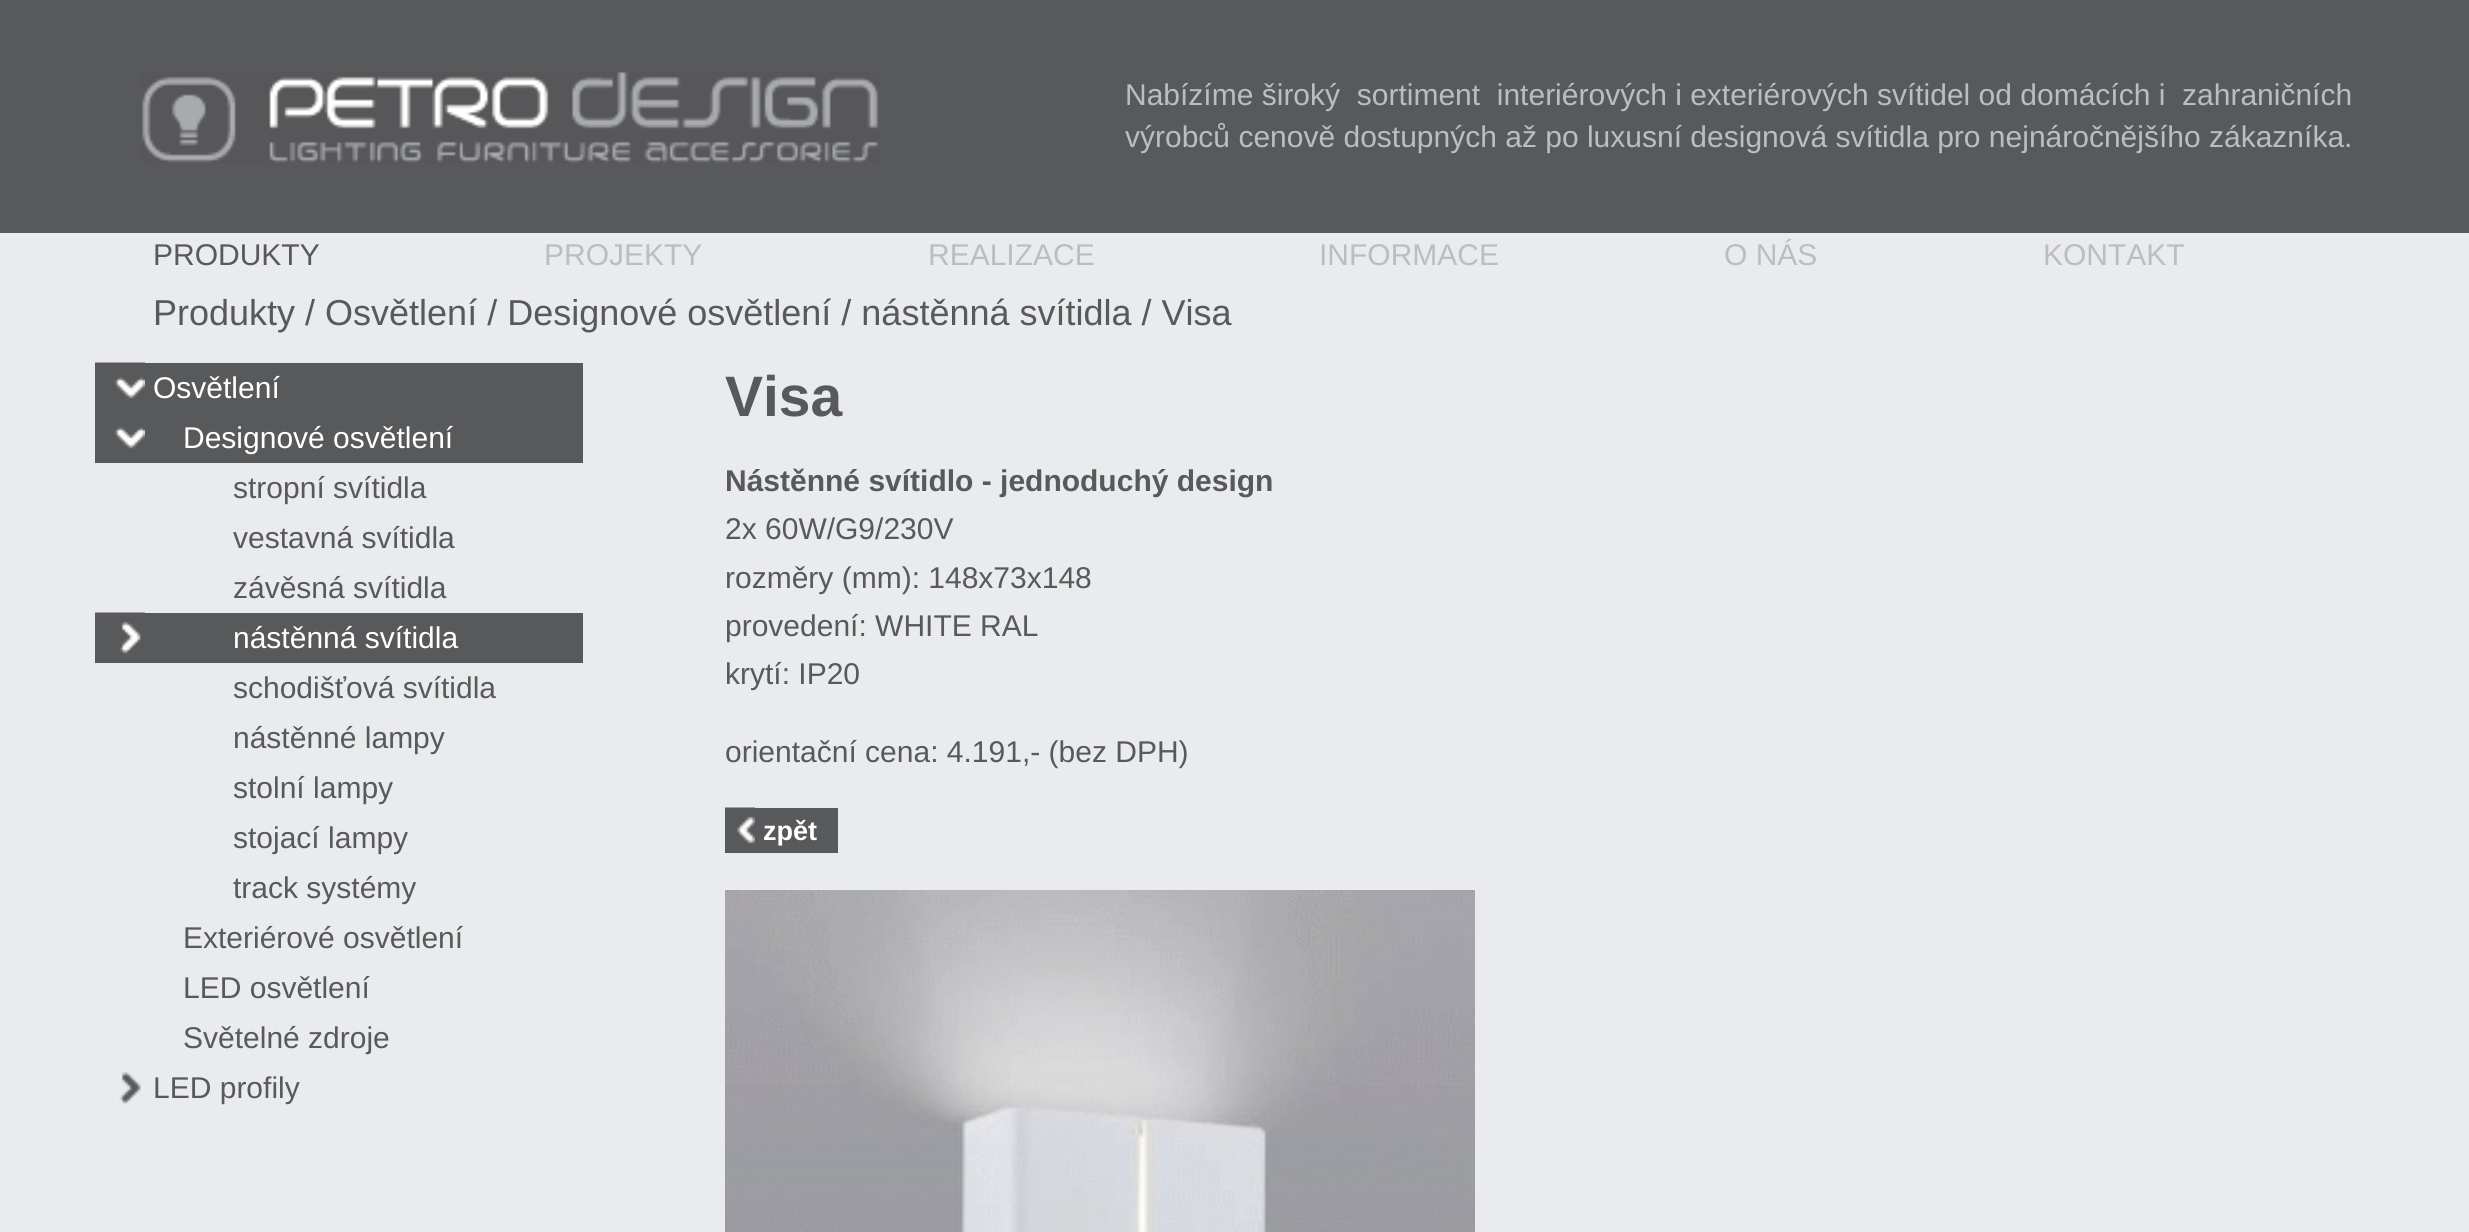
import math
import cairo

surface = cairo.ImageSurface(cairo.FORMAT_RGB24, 2469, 1232)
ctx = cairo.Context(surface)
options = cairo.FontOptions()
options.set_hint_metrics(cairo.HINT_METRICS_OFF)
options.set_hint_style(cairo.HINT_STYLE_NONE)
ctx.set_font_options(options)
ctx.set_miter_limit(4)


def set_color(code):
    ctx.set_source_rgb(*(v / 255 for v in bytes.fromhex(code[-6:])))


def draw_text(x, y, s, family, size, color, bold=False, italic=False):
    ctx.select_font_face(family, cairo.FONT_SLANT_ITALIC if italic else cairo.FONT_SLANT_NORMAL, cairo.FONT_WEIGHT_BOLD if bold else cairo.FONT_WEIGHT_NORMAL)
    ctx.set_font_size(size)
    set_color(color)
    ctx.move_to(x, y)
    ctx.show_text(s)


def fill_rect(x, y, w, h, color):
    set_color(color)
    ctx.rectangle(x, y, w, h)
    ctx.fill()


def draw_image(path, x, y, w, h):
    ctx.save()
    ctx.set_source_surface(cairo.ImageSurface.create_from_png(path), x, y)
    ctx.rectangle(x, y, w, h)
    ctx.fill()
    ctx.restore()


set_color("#eaebec")
ctx.paint()
fill_rect(0, 0, 2469, 233, "#58595b")
draw_image("assets/img1.png", 142, 72, 737, 91)
draw_text(1125, 105, "Nabízíme široký  sortiment  interiérových i exteriérových svítidel od domácích i  zahraničních", "Liberation Sans", 30, "#bbbdbf")
draw_text(1125, 147, "výrobců cenově dostupných až po luxusní designová svítidla pro nejnáročnějšího zákazníka.", "Liberation Sans", 30, "#bbbdbf")
draw_text(153, 265, "PRODUKTY", "Liberation Sans", 30, "#58595b")
draw_text(544, 265, "PROJEKTY", "Liberation Sans", 30, "#bbbdbf")
draw_text(928, 265, "REALIZACE", "Liberation Sans", 30, "#bbbdbf")
draw_text(1319, 265, "INFORMACE", "Liberation Sans", 30, "#bbbdbf")
draw_text(1724, 265, "O NÁS", "Liberation Sans", 30, "#bbbdbf")
draw_text(2043, 265, "KONTAKT", "Liberation Sans", 30, "#bbbdbf")
draw_text(153, 325, "Produkty / Osvětlení / Designové osvětlení / nástěnná svítidla / Visa", "Liberation Sans", 36, "#58595b")
fill_rect(95, 363, 488, 100, "#58595b")
draw_image("assets/img2.png", 95, 362, 50, 37)
draw_text(153, 398, "Osvětlení", "Liberation Sans", 30, "#ffffff")
draw_image("assets/img3.png", 114, 427, 31, 22)
draw_text(183, 448, "Designové osvětlení", "Liberation Sans", 30, "#ffffff")
draw_text(233, 498, "stropní svítidla", "Liberation Sans", 30, "#58595b")
draw_text(233, 548, "vestavná svítidla", "Liberation Sans", 30, "#58595b")
draw_text(233, 598, "závěsná svítidla", "Liberation Sans", 30, "#58595b")
fill_rect(95, 613, 488, 50, "#58595b")
draw_image("assets/img4.png", 95, 612, 50, 42)
draw_text(233, 648, "nástěnná svítidla", "Liberation Sans", 30, "#ffffff")
draw_text(233, 698, "schodišťová svítidla", "Liberation Sans", 30, "#58595b")
draw_text(233, 748, "nástěnné lampy", "Liberation Sans", 30, "#58595b")
draw_text(233, 798, "stolní lampy", "Liberation Sans", 30, "#58595b")
draw_text(233, 848, "stojací lampy", "Liberation Sans", 30, "#58595b")
draw_text(233, 898, "track systémy", "Liberation Sans", 30, "#58595b")
draw_text(183, 948, "Exteriérové osvětlení", "Liberation Sans", 30, "#58595b")
draw_text(183, 998, "LED osvětlení", "Liberation Sans", 30, "#58595b")
draw_text(183, 1048, "Světelné zdroje", "Liberation Sans", 30, "#58595b")
draw_image("assets/img5.png", 119, 1072, 22, 32)
draw_text(153, 1098, "LED profily", "Liberation Sans", 30, "#58595b")
draw_text(725, 416, "Visa", "Liberation Sans", 57, "#58595b", bold=True)
draw_text(725, 491, "Nástěnné svítidlo - jednoduchý design", "Liberation Sans", 30, "#58595b", bold=True)
draw_text(725, 539, "2x 60W/G9/230V", "Liberation Sans", 30, "#58595b")
draw_text(725, 588, "rozměry (mm): 148x73x148", "Liberation Sans", 30, "#58595b")
draw_text(725, 636, "provedení: WHITE RAL", "Liberation Sans", 30, "#58595b")
draw_text(725, 684, "krytí: IP20", "Liberation Sans", 30, "#58595b")
draw_text(725, 762, "orientační cena: 4.191,- (bez DPH)", "Liberation Sans", 30, "#58595b")
fill_rect(725, 808, 113, 45, "#58595b")
draw_image("assets/img6.png", 725, 807, 30, 37)
draw_text(763, 840, "zpět", "Liberation Sans", 27, "#ffffff", bold=True)
draw_image("assets/img7.png", 725, 890, 750, 342)
surface.write_to_png("output.png")
